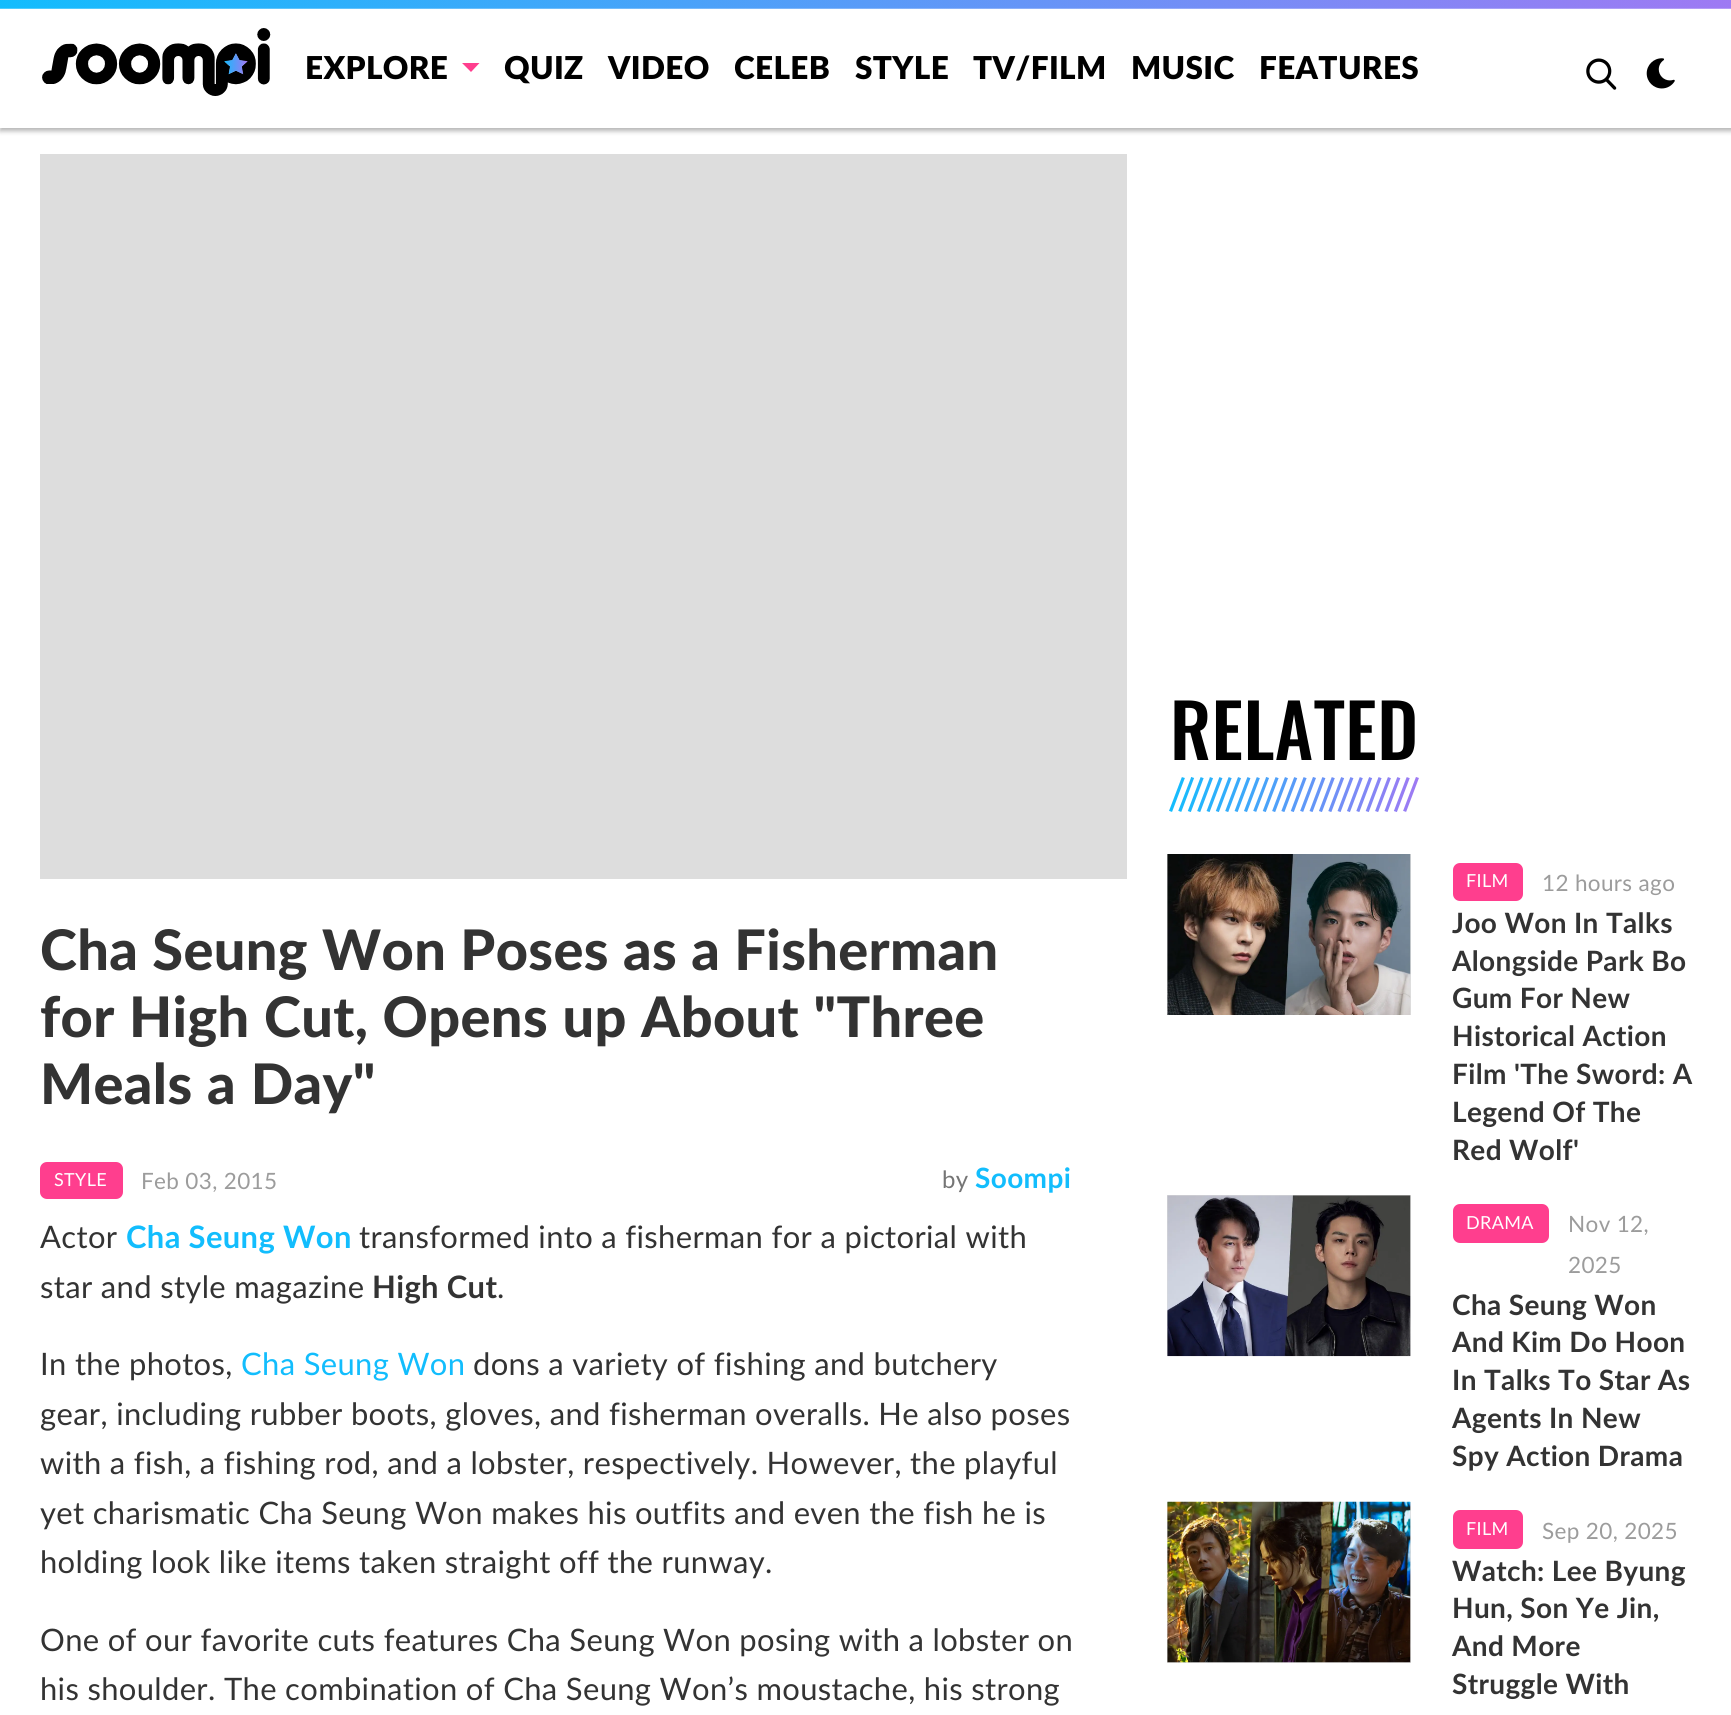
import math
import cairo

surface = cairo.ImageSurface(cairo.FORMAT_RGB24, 1731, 1715)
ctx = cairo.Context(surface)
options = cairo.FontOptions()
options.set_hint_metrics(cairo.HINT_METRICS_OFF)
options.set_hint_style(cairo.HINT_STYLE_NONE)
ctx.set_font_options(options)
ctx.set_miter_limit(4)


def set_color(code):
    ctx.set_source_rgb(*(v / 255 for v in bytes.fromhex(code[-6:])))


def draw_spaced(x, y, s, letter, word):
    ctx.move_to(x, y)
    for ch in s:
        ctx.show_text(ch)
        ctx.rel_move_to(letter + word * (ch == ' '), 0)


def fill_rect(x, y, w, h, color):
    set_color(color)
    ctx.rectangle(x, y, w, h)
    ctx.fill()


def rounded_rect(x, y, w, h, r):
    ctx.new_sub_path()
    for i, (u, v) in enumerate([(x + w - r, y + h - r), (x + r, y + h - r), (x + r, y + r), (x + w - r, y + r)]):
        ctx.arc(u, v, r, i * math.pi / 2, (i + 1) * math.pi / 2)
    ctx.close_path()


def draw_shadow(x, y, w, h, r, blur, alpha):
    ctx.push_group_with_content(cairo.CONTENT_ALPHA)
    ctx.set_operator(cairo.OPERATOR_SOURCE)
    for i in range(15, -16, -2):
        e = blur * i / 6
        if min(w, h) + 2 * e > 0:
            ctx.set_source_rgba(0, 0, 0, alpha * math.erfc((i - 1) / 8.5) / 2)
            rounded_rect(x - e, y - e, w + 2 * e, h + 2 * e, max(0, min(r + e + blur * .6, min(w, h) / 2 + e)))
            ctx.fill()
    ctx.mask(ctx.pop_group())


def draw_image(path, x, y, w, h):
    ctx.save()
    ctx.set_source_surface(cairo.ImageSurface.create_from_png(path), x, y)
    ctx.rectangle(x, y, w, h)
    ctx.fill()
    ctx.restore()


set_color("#ffffff")
ctx.paint()
set_color("#000000")
draw_shadow(0, 4, 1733, 127, 0, 2.5, 0.3)
fill_rect(0, 8, 1731, 120, "#ffffff")
draw_image("assets/img1.png", 0, 0, 1731, 9)
draw_image("assets/img2.png", 42, 28, 229, 68)
ctx.select_font_face("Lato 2 Black")
ctx.set_font_size(31.5)
set_color("#000000")
draw_spaced(305, 79, "EXPLORE", 0.35, 0)
set_color("#ff3e8e")
ctx.new_path()
ctx.move_to(462, 63)
ctx.line_to(479.5, 63)
ctx.line_to(471, 72)
ctx.close_path()
ctx.fill()
set_color("#000000")
draw_spaced(504, 79, "QUIZ", 0.35, 0)
draw_spaced(608, 79, "VIDEO", 0.35, 0)
draw_spaced(734, 79, "CELEB", 0.35, 0)
draw_spaced(855, 79, "STYLE", 0.35, 0)
draw_spaced(973, 79, "TV/FILM", 0.35, 0)
draw_spaced(1131, 79, "MUSIC", 0.35, 0)
draw_spaced(1259, 79, "FEATURES", 0.35, 0)
draw_image("assets/img3.png", 1586, 58, 31, 32)
draw_image("assets/img4.png", 1646, 58, 29, 31)
fill_rect(40, 154, 1087, 725, "#dddddd")
ctx.select_font_face("Lato Black")
ctx.set_font_size(55.9)
set_color("#333333")
draw_spaced(40, 970, "Cha Seung Won Poses as a Fisherman", 0.35, 0.5)
draw_spaced(40, 1037, "for High Cut, Opens up About \"Three", 0.35, 0.75)
draw_spaced(40, 1104, "Meals a Day\"", 0.35, 1)
set_color("#ff3e8e")
rounded_rect(40, 1162, 83, 37, 7)
ctx.fill()
ctx.select_font_face("Lato")
ctx.set_font_size(18)
set_color("#ffffff")
draw_spaced(54, 1186, "STYLE", 0.35, 0)
ctx.set_font_size(22.5)
set_color("#9c9c9c")
draw_spaced(141, 1189, "Feb 03, 2015", 0.35, 0)
ctx.set_font_size(24)
set_color("#757575")
draw_spaced(942, 1188, "by", 0.35, 0)
ctx.select_font_face("Lato", cairo.FONT_SLANT_NORMAL, cairo.FONT_WEIGHT_BOLD)
ctx.set_font_size(28)
set_color("#12bdfd")
draw_spaced(975, 1188, "Soompi", 0.35, 0)
ctx.select_font_face("Lato")
ctx.set_font_size(30.95)
set_color("#333333")
draw_spaced(40, 1248, "Actor", 0.35, 0)
ctx.select_font_face("Lato", cairo.FONT_SLANT_NORMAL, cairo.FONT_WEIGHT_BOLD)
set_color("#12bdfd")
draw_spaced(126, 1248, "Cha Seung Won", 0.35, 0)
ctx.select_font_face("Lato")
set_color("#333333")
draw_spaced(359, 1248, "transformed into a fisherman for a pictorial with", 0.35, 0)
draw_spaced(40, 1298, "star and style magazine", 0.35, 0)
ctx.select_font_face("Lato", cairo.FONT_SLANT_NORMAL, cairo.FONT_WEIGHT_BOLD)
draw_spaced(372, 1298, "High Cut", 0.35, 0)
ctx.select_font_face("Lato")
draw_spaced(497, 1298, ".", 0.35, 0)
draw_spaced(40, 1375, "In the photos,", 0.35, 0)
set_color("#12bdfd")
draw_spaced(241, 1375, "Cha Seung Won", 0.35, 0)
set_color("#333333")
draw_spaced(473, 1375, "dons a variety of fishing and butchery", 0.35, 0)
draw_spaced(40, 1425, "gear, including rubber boots, gloves, and fisherman overalls. He also poses", 0.35, 0)
draw_spaced(40, 1474, "with a fish, a fishing rod, and a lobster, respectively. However, the playful", 0.35, 0)
draw_spaced(40, 1524, "yet charismatic Cha Seung Won makes his outfits and even the fish he is", 0.35, 0)
draw_spaced(40, 1573, "holding look like items taken straight off the runway.", 0.35, 0)
draw_spaced(40, 1651, "One of our favorite cuts features Cha Seung Won posing with a lobster on", 0.35, 0)
draw_spaced(40, 1700, "his shoulder. The combination of Cha Seung Won’s moustache, his strong", 0.35, 0)
ctx.select_font_face("Oswald Medium")
ctx.set_font_size(73.5)
set_color("#000000")
draw_spaced(1170, 760, "RELATED", 0.35, 0)
draw_image("assets/img5.png", 1169, 777, 250, 35)
fill_rect(1167, 854, 244, 161, "#dddddd")
draw_image("assets/img6.png", 1167, 854, 244, 161)
set_color("#ff3e8e")
rounded_rect(1453, 863, 70, 38, 7)
ctx.fill()
ctx.select_font_face("Lato")
ctx.set_font_size(18)
set_color("#ffffff")
draw_spaced(1466, 887, "FILM", 0.35, 0)
ctx.set_font_size(22.5)
set_color("#9c9c9c")
draw_spaced(1542, 891, "12 hours ago", 0.35, 0)
ctx.select_font_face("Lato", cairo.FONT_SLANT_NORMAL, cairo.FONT_WEIGHT_BOLD)
ctx.set_font_size(28)
set_color("#333333")
draw_spaced(1452, 933, "Joo Won In Talks", 0.35, 0)
draw_spaced(1452, 971, "Alongside Park Bo", 0.35, 0)
draw_spaced(1452, 1008, "Gum For New", 0.35, 0)
draw_spaced(1452, 1046, "Historical Action", 0.35, 0)
draw_spaced(1452, 1084, "Film 'The Sword: A", 0.35, 0)
draw_spaced(1452, 1122, "Legend Of The", 0.35, 0)
draw_spaced(1452, 1160, "Red Wolf'", 0.35, 0)
fill_rect(1167, 1195, 244, 161, "#dddddd")
draw_image("assets/img7.png", 1167, 1195, 244, 162)
set_color("#ff3e8e")
rounded_rect(1453, 1204, 96, 39, 7)
ctx.fill()
ctx.select_font_face("Lato")
ctx.set_font_size(18)
set_color("#ffffff")
draw_spaced(1466, 1229, "DRAMA", 0.35, 0)
ctx.set_font_size(22.5)
set_color("#9c9c9c")
draw_spaced(1568, 1232, "Nov 12,", 0.35, 0)
draw_spaced(1568, 1273, "2025", 0.35, 0)
ctx.select_font_face("Lato", cairo.FONT_SLANT_NORMAL, cairo.FONT_WEIGHT_BOLD)
ctx.set_font_size(28)
set_color("#333333")
draw_spaced(1452, 1315, "Cha Seung Won", 0.35, 0)
draw_spaced(1452, 1352, "And Kim Do Hoon", 0.35, 0)
draw_spaced(1452, 1390, "In Talks To Star As", 0.35, 0)
draw_spaced(1452, 1428, "Agents In New", 0.35, 0)
draw_spaced(1452, 1466, "Spy Action Drama", 0.35, 0)
fill_rect(1167, 1502, 244, 161, "#dddddd")
draw_image("assets/img8.png", 1167, 1501, 244, 162)
set_color("#ff3e8e")
rounded_rect(1453, 1510, 70, 39, 7)
ctx.fill()
ctx.select_font_face("Lato")
ctx.set_font_size(18)
set_color("#ffffff")
draw_spaced(1466, 1535, "FILM", 0.35, 0)
ctx.set_font_size(22.5)
set_color("#9c9c9c")
draw_spaced(1542, 1539, "Sep 20, 2025", 0.35, 0)
ctx.select_font_face("Lato", cairo.FONT_SLANT_NORMAL, cairo.FONT_WEIGHT_BOLD)
ctx.set_font_size(28)
set_color("#333333")
draw_spaced(1452, 1581, "Watch: Lee Byung", 0.35, 0)
draw_spaced(1452, 1618, "Hun, Son Ye Jin,", 0.35, 0)
draw_spaced(1452, 1656, "And More", 0.35, 0)
draw_spaced(1452, 1694, "Struggle With", 0.35, 0)
surface.write_to_png("output.png")
